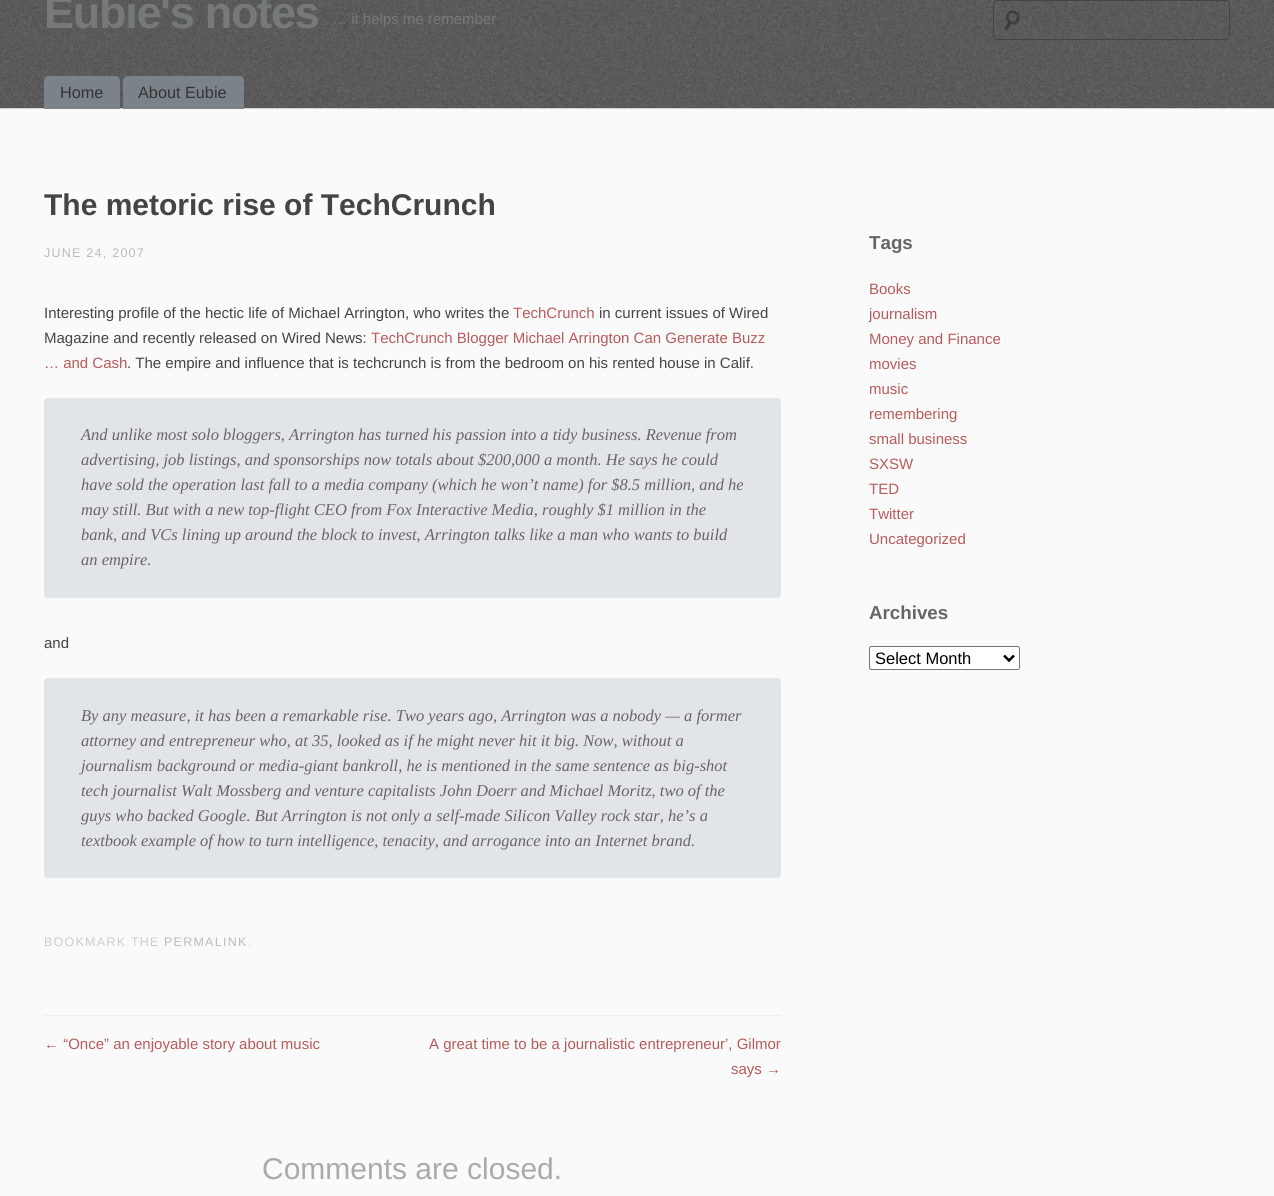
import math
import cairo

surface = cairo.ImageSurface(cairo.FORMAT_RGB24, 1274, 1196)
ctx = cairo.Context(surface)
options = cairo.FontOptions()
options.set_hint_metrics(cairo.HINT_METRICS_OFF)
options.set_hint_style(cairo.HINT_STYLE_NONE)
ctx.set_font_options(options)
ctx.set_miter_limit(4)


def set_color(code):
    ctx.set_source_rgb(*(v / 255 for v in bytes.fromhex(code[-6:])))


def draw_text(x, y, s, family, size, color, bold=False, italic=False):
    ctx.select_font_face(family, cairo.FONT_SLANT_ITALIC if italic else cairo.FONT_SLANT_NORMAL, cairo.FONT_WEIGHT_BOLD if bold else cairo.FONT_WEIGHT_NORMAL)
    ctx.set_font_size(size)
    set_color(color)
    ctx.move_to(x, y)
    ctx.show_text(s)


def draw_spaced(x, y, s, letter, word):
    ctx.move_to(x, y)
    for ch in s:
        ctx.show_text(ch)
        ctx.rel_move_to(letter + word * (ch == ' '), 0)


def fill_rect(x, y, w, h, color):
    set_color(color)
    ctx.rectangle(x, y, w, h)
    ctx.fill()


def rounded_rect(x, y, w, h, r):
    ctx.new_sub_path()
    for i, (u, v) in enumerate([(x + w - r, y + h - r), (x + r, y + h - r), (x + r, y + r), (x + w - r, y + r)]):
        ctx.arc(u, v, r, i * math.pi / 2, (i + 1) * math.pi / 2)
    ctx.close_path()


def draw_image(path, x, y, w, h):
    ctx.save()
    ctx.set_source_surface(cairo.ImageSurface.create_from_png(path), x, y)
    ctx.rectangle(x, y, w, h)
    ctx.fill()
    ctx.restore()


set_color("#fafafa")
ctx.paint()
draw_image("assets/img1.png", 0, 0, 1274, 109)
ctx.select_font_face("Liberation Sans", cairo.FONT_SLANT_NORMAL, cairo.FONT_WEIGHT_BOLD)
ctx.set_font_size(45)
set_color("#75797a")
draw_spaced(44, 28, "Eubie's notes", -1.25, 0)
draw_text(332, 24, "… it helps me remember", "Liberation Sans", 15, "#75797a")
draw_image("assets/img2.png", 1004, 10, 16, 21)
rounded_rect(993.5, 0.5, 236, 39, 3.5)
set_color("#444444")
ctx.set_line_width(1)
ctx.stroke()
set_color("#7b828a")
ctx.new_path()
ctx.move_to(49, 76)
ctx.line_to(115, 76)
ctx.curve_to(118, 76, 120, 78, 120, 81)
ctx.line_to(120, 109)
ctx.line_to(44, 109)
ctx.line_to(44, 81)
ctx.curve_to(44, 78, 46, 76, 49, 76)
ctx.close_path()
ctx.fill()
draw_text(60, 98, "Home", "Liberation Sans", 16.25, "#333333")
set_color("#7b828a")
ctx.new_path()
ctx.move_to(128, 76)
ctx.line_to(239, 76)
ctx.curve_to(242, 76, 244, 78, 244, 81)
ctx.line_to(244, 109)
ctx.line_to(123, 109)
ctx.line_to(123, 81)
ctx.curve_to(123, 78, 125, 76, 128, 76)
ctx.close_path()
ctx.fill()
draw_text(138, 98, "About Eubie", "Liberation Sans", 16.25, "#333333")
fill_rect(44, 1015, 737, 1, "#eeeeee")
draw_text(44, 215, "The metoric rise of TechCrunch", "Liberation Sans", 30, "#444444", bold=True)
ctx.select_font_face("Liberation Sans")
ctx.set_font_size(12.5)
set_color("#bbbbbb")
draw_spaced(44, 257, "JUNE 24, 2007", 1.25, 0)
draw_text(44, 318, "Interesting profile of the hectic life of Michael Arrington, who writes the", "Liberation Sans", 15, "#444444")
draw_text(513, 318, "TechCrunch", "Liberation Sans", 15, "#b85b5a")
draw_text(599, 318, "in current issues of Wired", "Liberation Sans", 15, "#444444")
draw_text(44, 343, "Magazine and recently released on Wired News:", "Liberation Sans", 15, "#444444")
draw_text(371, 343, "TechCrunch Blogger Michael Arrington Can Generate Buzz", "Liberation Sans", 15, "#b85b5a")
draw_text(44, 368, "… and Cash", "Liberation Sans", 15, "#b85b5a")
draw_text(127, 368, ". The empire and influence that is techcrunch is from the bedroom on his rented house in Calif.", "Liberation Sans", 15, "#444444")
set_color("#e1e5e9")
rounded_rect(44, 398, 737, 200, 4)
ctx.fill()
draw_text(81, 440, "And unlike most solo bloggers, Arrington has turned his passion into a tidy business. Revenue from", "Liberation Serif", 16.5, "#666666", italic=True)
draw_text(81, 465, "advertising, job listings, and sponsorships now totals about $200,000 a month. He says he could", "Liberation Serif", 16.5, "#666666", italic=True)
draw_text(81, 490, "have sold the operation last fall to a media company (which he won’t name) for $8.5 million, and he", "Liberation Serif", 16.5, "#666666", italic=True)
draw_text(81, 515, "may still. But with a new top-flight CEO from Fox Interactive Media, roughly $1 million in the", "Liberation Serif", 16.5, "#666666", italic=True)
draw_text(81, 540, "bank, and VCs lining up around the block to invest, Arrington talks like a man who wants to build", "Liberation Serif", 16.5, "#666666", italic=True)
draw_text(81, 565, "an empire.", "Liberation Serif", 16.5, "#666666", italic=True)
draw_text(44, 648, "and", "Liberation Sans", 15, "#444444")
set_color("#e1e5e9")
rounded_rect(44, 678, 737, 200, 4)
ctx.fill()
draw_text(81, 721, "By any measure, it has been a remarkable rise. Two years ago, Arrington was a nobody — a former", "Liberation Serif", 16.5, "#666666", italic=True)
draw_text(81, 746, "attorney and entrepreneur who, at 35, looked as if he might never hit it big. Now, without a", "Liberation Serif", 16.5, "#666666", italic=True)
draw_text(81, 771, "journalism background or media-giant bankroll, he is mentioned in the same sentence as big-shot", "Liberation Serif", 16.5, "#666666", italic=True)
draw_text(81, 796, "tech journalist Walt Mossberg and venture capitalists John Doerr and Michael Moritz, two of the", "Liberation Serif", 16.5, "#666666", italic=True)
draw_text(81, 821, "guys who backed Google. But Arrington is not only a self-made Silicon Valley rock star, he’s a", "Liberation Serif", 16.5, "#666666", italic=True)
draw_text(81, 846, "textbook example of how to turn intelligence, tenacity, and arrogance into an Internet brand.", "Liberation Serif", 16.5, "#666666", italic=True)
ctx.select_font_face("Liberation Sans")
ctx.set_font_size(12.5)
set_color("#cccccc")
draw_spaced(44, 946, "BOOKMARK THE", 1.25, 0)
set_color("#bbbbbb")
draw_spaced(164, 946, "PERMALINK", 1.25, 0)
set_color("#cccccc")
draw_spaced(248, 946, ".", 1.25, 0)
draw_text(44, 1049, "← “Once” an enjoyable story about music", "Liberation Sans", 15, "#b85b5a")
draw_text(429, 1049, "A great time to be a journalistic entrepreneur’, Gilmor", "Liberation Sans", 15, "#b85b5a")
draw_text(731, 1074, "says →", "Liberation Sans", 15, "#b85b5a")
draw_text(262, 1179, "Comments are closed.", "Liberation Sans", 30, "#aaaaaa")
draw_text(869, 249, "Tags", "Liberation Sans", 18.75, "#666666", bold=True)
draw_text(869, 294, "Books", "Liberation Sans", 15, "#b85b5a")
draw_text(869, 319, "journalism", "Liberation Sans", 15, "#b85b5a")
draw_text(869, 344, "Money and Finance", "Liberation Sans", 15, "#b85b5a")
draw_text(869, 369, "movies", "Liberation Sans", 15, "#b85b5a")
draw_text(869, 394, "music", "Liberation Sans", 15, "#b85b5a")
draw_text(869, 419, "remembering", "Liberation Sans", 15, "#b85b5a")
draw_text(869, 444, "small business", "Liberation Sans", 15, "#b85b5a")
draw_text(869, 469, "SXSW", "Liberation Sans", 15, "#b85b5a")
draw_text(869, 494, "TED", "Liberation Sans", 15, "#b85b5a")
draw_text(869, 519, "Twitter", "Liberation Sans", 15, "#b85b5a")
draw_text(869, 544, "Uncategorized", "Liberation Sans", 15, "#b85b5a")
draw_text(869, 619, "Archives", "Liberation Sans", 18.75, "#666666", bold=True)
set_color("#ffffff")
rounded_rect(869.5, 646.5, 150, 23, 2)
ctx.fill_preserve()
set_color("#767676")
ctx.stroke()
ctx.new_path()
ctx.move_to(1004, 655.5)
ctx.line_to(1009, 660.5)
ctx.line_to(1014, 655.5)
set_color("#000000")
ctx.set_line_width(2.5)
ctx.stroke()
draw_text(875, 664, "Select Month", "Liberation Sans", 16.5, "#000000")
surface.write_to_png("output.png")
